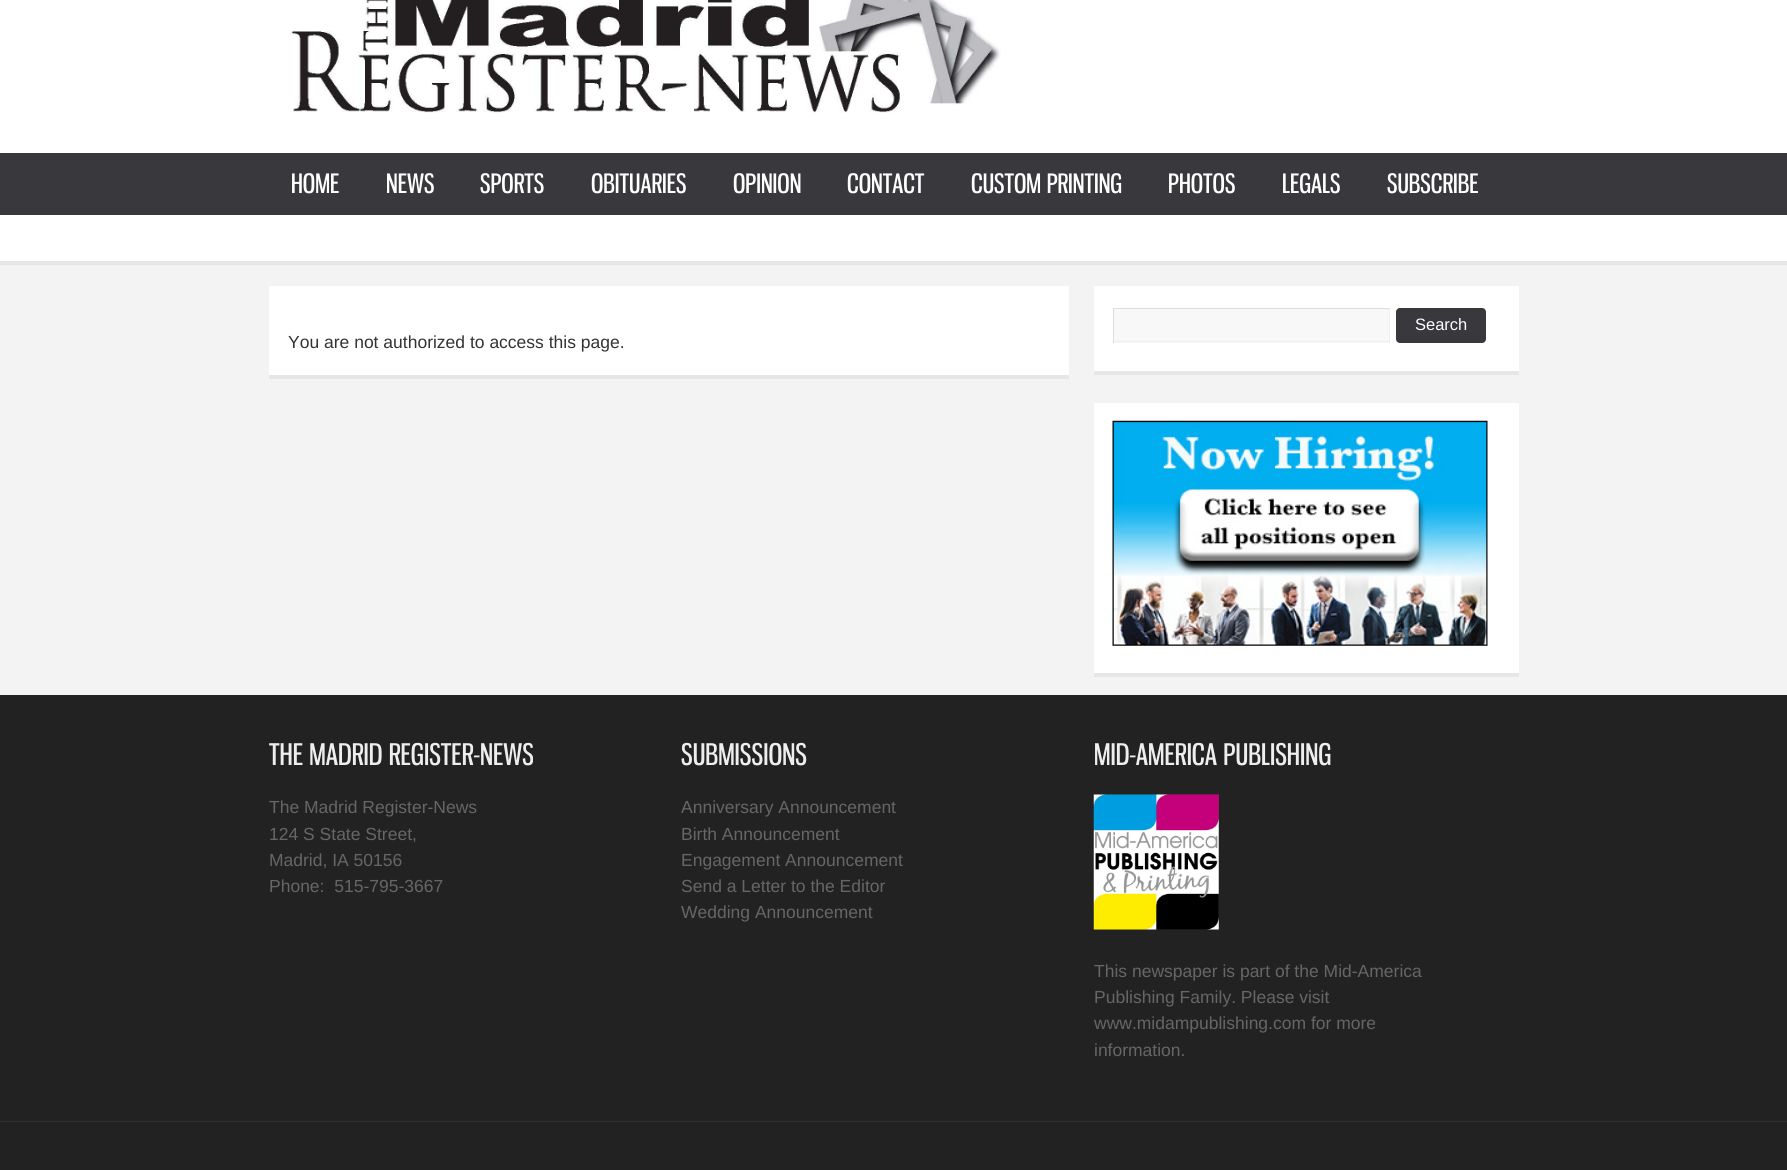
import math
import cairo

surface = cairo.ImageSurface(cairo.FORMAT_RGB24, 1787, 1170)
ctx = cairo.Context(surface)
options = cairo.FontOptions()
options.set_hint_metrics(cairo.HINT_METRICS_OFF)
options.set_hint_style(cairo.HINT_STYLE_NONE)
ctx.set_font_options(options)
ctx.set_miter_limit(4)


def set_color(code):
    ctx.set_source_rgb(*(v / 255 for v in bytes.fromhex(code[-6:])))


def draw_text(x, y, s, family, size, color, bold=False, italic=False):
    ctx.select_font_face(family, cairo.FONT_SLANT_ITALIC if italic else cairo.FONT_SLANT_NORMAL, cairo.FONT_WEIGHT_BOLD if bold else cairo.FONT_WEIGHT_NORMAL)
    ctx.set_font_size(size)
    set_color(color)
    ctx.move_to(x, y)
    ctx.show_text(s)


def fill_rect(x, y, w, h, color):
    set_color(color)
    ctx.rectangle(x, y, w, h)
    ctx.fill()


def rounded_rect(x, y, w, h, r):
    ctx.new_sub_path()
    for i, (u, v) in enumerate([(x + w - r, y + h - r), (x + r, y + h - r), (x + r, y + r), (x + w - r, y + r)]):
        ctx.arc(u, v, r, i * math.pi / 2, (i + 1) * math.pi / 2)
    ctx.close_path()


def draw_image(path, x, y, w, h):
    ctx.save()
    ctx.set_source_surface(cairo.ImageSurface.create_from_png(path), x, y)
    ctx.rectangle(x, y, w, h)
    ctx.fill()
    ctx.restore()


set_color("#f3f3f3")
ctx.paint()
fill_rect(0, 0, 1787, 153, "#ffffff")
draw_image("assets/img1.png", 290, 0, 711, 113)
fill_rect(0, 153, 1787, 62, "#39383d")
fill_rect(0, 261, 1787, 4, "#e6e6e6")
draw_text(291, 193, "HOME", "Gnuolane", 26.25, "#ffffff")
draw_text(386, 193, "NEWS", "Gnuolane", 26.25, "#ffffff")
draw_text(480, 193, "SPORTS", "Gnuolane", 26.25, "#ffffff")
draw_text(591, 193, "OBITUARIES", "Gnuolane", 26.25, "#ffffff")
draw_text(733, 193, "OPINION", "Gnuolane", 26.25, "#ffffff")
draw_text(847, 193, "CONTACT", "Gnuolane", 26.25, "#ffffff")
draw_text(971, 193, "CUSTOM PRINTING", "Gnuolane", 26.25, "#ffffff")
draw_text(1168, 193, "PHOTOS", "Gnuolane", 26.25, "#ffffff")
draw_text(1282, 193, "LEGALS", "Gnuolane", 26.25, "#ffffff")
draw_text(1387, 193, "SUBSCRIBE", "Gnuolane", 26.25, "#ffffff")
fill_rect(0, 215, 1787, 46, "#ffffff")
fill_rect(1094, 286, 425, 85, "#ffffff")
fill_rect(1094, 371, 425, 4, "#e6e6e6")
fill_rect(1114, 309, 275, 34, "#f8f8f8")
fill_rect(1113, 308, 277, 1, "#dddddd")
fill_rect(1389, 308, 1, 35, "#eeeeee")
fill_rect(1113, 341, 277, 1, "#eeeeee")
fill_rect(1113, 308, 1, 35, "#dddddd")
set_color("#39383d")
rounded_rect(1396, 308, 90, 35, 4)
ctx.fill()
draw_text(1415, 330, "Search", "Liberation Sans", 16.5, "#ffffff")
fill_rect(1094, 403, 425, 270, "#ffffff")
fill_rect(1094, 673, 425, 4, "#e6e6e6")
draw_image("assets/img2.png", 1112, 420, 376, 226)
fill_rect(269, 286, 800, 89, "#ffffff")
fill_rect(269, 375, 800, 4, "#e6e6e6")
draw_text(288, 348, "You are not authorized to access this page.", "Liberation Sans", 17.5, "#333333")
fill_rect(0, 695, 1787, 426, "#222222")
draw_text(269, 765, "THE MADRID REGISTER-NEWS", "Gnuolane", 29.25, "#eeeeee")
draw_text(269, 813, "The Madrid Register-News", "Liberation Sans", 17.5, "#666666")
draw_text(269, 840, "124 S State Street,", "Liberation Sans", 17.5, "#666666")
draw_text(269, 866, "Madrid, IA 50156", "Liberation Sans", 17.5, "#666666")
draw_text(269, 892, "Phone:  515-795-3667", "Liberation Sans", 17.5, "#666666")
draw_text(681, 765, "SUBMISSIONS", "Gnuolane", 29.25, "#eeeeee")
draw_text(681, 813, "Anniversary Announcement", "Liberation Sans", 17.5, "#666666")
draw_text(681, 840, "Birth Announcement", "Liberation Sans", 17.5, "#666666")
draw_text(681, 866, "Engagement Announcement", "Liberation Sans", 17.5, "#666666")
draw_text(681, 892, "Send a Letter to the Editor", "Liberation Sans", 17.5, "#666666")
draw_text(681, 918, "Wedding Announcement", "Liberation Sans", 17.5, "#666666")
draw_text(1094, 765, "MID-AMERICA PUBLISHING", "Gnuolane", 29.25, "#eeeeee")
draw_image("assets/img3.png", 1093, 794, 126, 136)
draw_text(1094, 977, "This newspaper is part of the Mid-America", "Liberation Sans", 17.5, "#666666")
draw_text(1094, 1003, "Publishing Family. Please visit", "Liberation Sans", 17.5, "#666666")
draw_text(1094, 1029, "www.midampublishing.com for more", "Liberation Sans", 17.5, "#666666")
draw_text(1094, 1056, "information.", "Liberation Sans", 17.5, "#666666")
fill_rect(0, 1122, 1787, 48, "#222222")
fill_rect(0, 1121, 1787, 1, "#333333")
surface.write_to_png("output.png")
